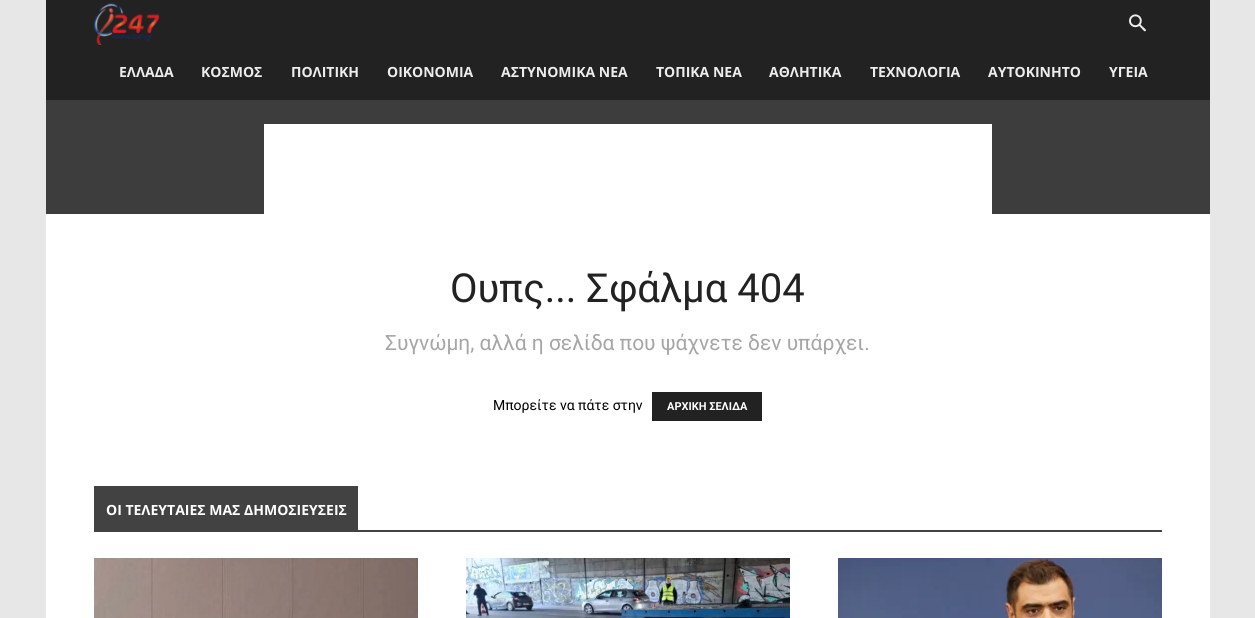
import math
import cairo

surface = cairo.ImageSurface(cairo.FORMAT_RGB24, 1255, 618)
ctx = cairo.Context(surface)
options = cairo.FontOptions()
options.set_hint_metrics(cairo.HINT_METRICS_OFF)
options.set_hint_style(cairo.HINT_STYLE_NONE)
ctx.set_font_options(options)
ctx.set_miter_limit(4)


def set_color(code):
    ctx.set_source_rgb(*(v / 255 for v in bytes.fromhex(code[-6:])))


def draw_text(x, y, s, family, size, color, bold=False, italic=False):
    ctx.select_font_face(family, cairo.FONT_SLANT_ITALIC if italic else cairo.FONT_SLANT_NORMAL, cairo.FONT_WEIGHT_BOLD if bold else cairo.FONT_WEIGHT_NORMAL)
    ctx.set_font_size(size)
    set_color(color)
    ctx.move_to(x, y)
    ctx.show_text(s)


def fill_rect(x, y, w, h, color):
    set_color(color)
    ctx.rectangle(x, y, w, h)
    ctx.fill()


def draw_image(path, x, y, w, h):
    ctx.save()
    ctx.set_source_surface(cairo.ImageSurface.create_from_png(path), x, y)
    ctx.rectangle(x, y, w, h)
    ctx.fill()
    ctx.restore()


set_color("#e7e7e7")
ctx.paint()
fill_rect(46, 0, 1164, 100, "#222222")
draw_image("assets/img1.png", 1129, 14, 17, 18)
draw_image("assets/img2.png", 93, 2, 67, 43)
draw_text(119, 77, "ΕΛΛΑΔΑ", "Open Sans", 14, "#ededed", bold=True)
draw_text(201, 77, "ΚΟΣΜΟΣ", "Open Sans", 14, "#ededed", bold=True)
draw_text(291, 77, "ΠΟΛΙΤΙΚΗ", "Open Sans", 14, "#ededed", bold=True)
draw_text(387, 77, "ΟΙΚΟΝΟΜΙΑ", "Open Sans", 14, "#ededed", bold=True)
draw_text(501, 77, "ΑΣΤΥΝΟΜΙΚΑ ΝΕΑ", "Open Sans", 14, "#ededed", bold=True)
draw_text(656, 77, "ΤΟΠΙΚΑ ΝΕΑ", "Open Sans", 14, "#ededed", bold=True)
draw_text(769, 77, "ΑΘΛΗΤΙΚΑ", "Open Sans", 14, "#ededed", bold=True)
draw_text(870, 77, "ΤΕΧΝΟΛΟΓΙΑ", "Open Sans", 14, "#ededed", bold=True)
draw_text(988, 77, "ΑΥΤΟΚΙΝΗΤΟ", "Open Sans", 14, "#ededed", bold=True)
draw_text(1109, 77, "ΥΓΕΙΑ", "Open Sans", 14, "#ededed", bold=True)
fill_rect(46, 100, 1164, 114, "#3d3d3d")
fill_rect(264, 124, 728, 90, "#ffffff")
fill_rect(46, 214, 1164, 404, "#ffffff")
draw_text(450, 302, "Ουπς... Σφάλμα 404", "Roboto", 40, "#222222")
draw_text(385, 350, "Συγνώμη, αλλά η σελίδα που ψάχνετε δεν υπάρχει.", "Roboto", 21, "#a6a6a6")
draw_text(493, 410, "Μπορείτε να πάτε στην", "Roboto", 14, "#000000")
fill_rect(652, 392, 110, 29, "#222222")
draw_text(667, 410, "ΑΡΧΙΚΗ ΣΕΛΙΔΑ", "Roboto", 11, "#ffffff", bold=True)
fill_rect(94, 530, 1068, 2, "#424242")
fill_rect(94, 486, 264, 44, "#424242")
draw_text(106, 515, "ΟΙ ΤΕΛΕΥΤΑΙΕΣ ΜΑΣ ΔΗΜΟΣΙΕΥΣΕΙΣ", "Open Sans", 14, "#ffffff", bold=True)
draw_image("assets/img3.png", 94, 558, 324, 60)
draw_image("assets/img4.png", 466, 558, 324, 60)
draw_image("assets/img5.png", 838, 558, 324, 60)
surface.write_to_png("output.png")
